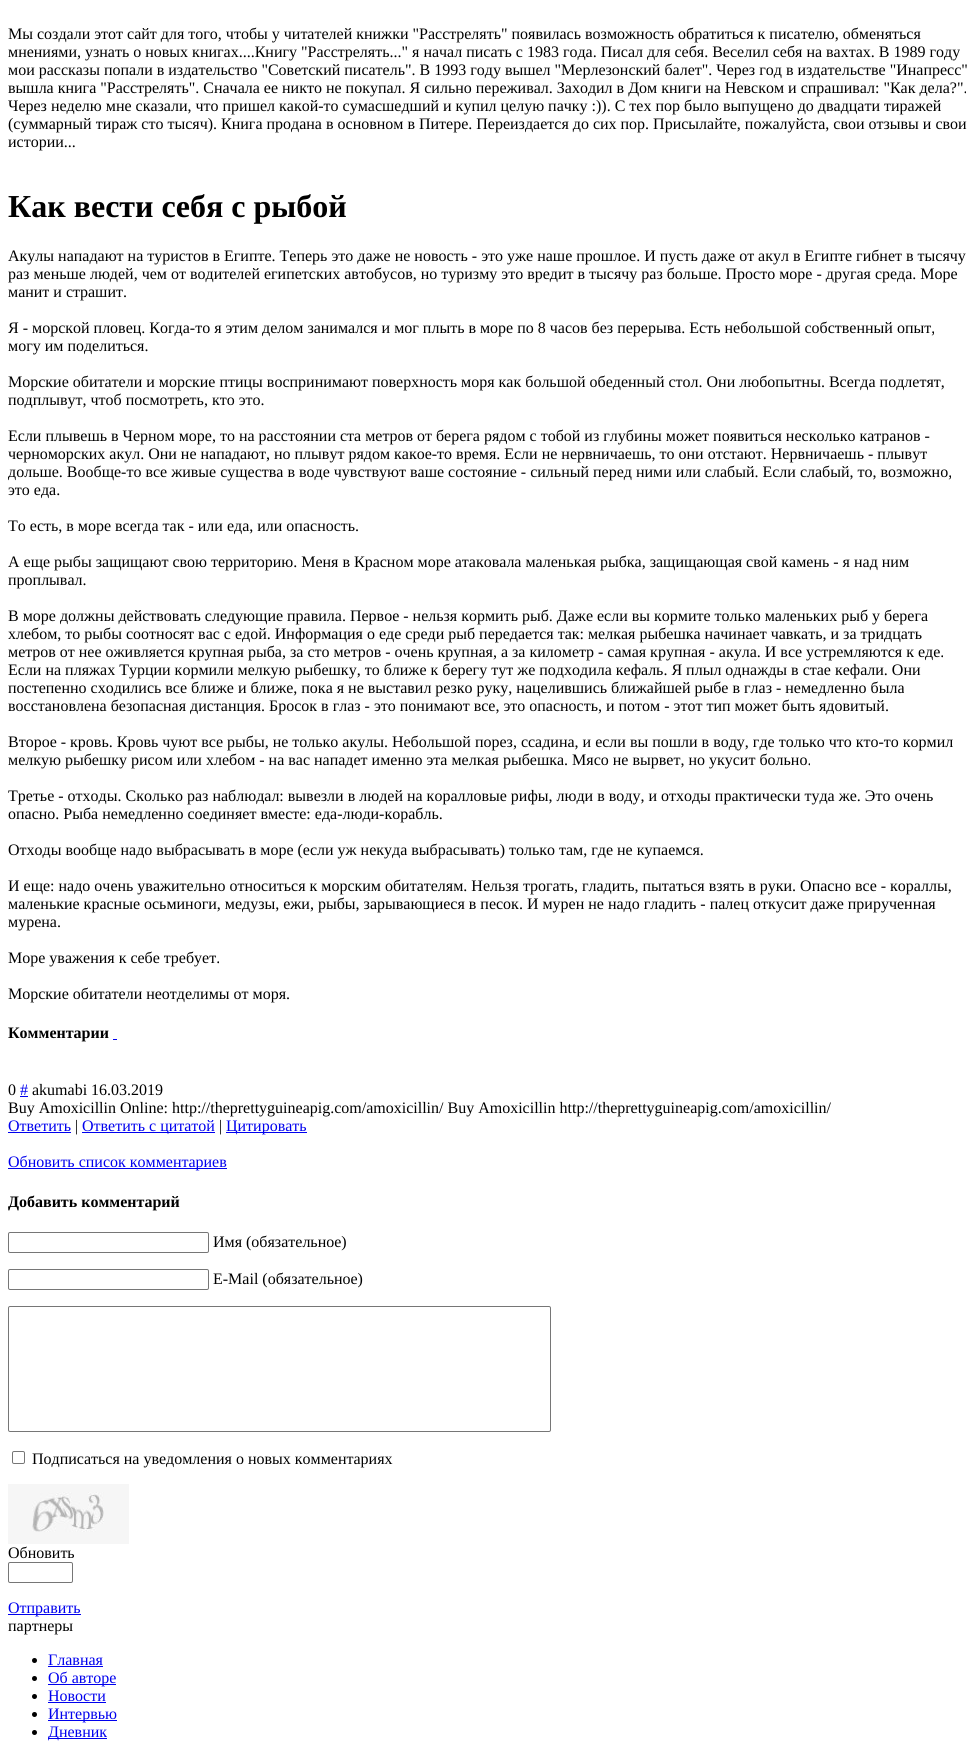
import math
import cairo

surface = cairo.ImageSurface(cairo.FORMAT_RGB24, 978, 1741)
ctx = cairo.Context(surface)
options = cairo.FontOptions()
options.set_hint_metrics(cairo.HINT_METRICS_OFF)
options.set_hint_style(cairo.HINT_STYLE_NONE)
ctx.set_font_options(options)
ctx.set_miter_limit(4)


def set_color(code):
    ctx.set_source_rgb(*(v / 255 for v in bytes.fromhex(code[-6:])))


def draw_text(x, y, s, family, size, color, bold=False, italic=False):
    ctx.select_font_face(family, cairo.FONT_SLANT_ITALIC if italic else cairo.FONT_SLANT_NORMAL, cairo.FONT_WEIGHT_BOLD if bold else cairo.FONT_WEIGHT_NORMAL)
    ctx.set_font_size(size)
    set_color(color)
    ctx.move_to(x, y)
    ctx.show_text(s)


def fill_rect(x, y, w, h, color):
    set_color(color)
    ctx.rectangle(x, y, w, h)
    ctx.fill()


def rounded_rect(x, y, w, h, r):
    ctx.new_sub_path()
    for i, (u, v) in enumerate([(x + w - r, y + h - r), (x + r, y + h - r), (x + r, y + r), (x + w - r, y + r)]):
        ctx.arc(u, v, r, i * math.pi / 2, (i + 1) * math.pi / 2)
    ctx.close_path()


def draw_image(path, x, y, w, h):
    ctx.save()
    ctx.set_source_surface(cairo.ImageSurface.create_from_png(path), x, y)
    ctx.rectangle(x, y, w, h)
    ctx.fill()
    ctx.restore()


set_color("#ffffff")
ctx.paint()
draw_text(8, 39, "Мы создали этот сайт для того, чтобы у читателей книжки \"Расстрелять\" появилась возможность обратиться к писателю, обменяться", "Liberation Serif", 16, "#000000")
draw_text(8, 57, "мнениями, узнать о новых книгах....Книгу \"Расстрелять...\" я начал писать с 1983 года. Писал для себя. Веселил себя на вахтах. В 1989 году", "Liberation Serif", 16, "#000000")
draw_text(8, 75, "мои рассказы попали в издательство \"Советский писатель\". В 1993 году вышел \"Мерлезонский балет\". Через год в издательстве \"Инапресс\"", "Liberation Serif", 16, "#000000")
draw_text(8, 93, "вышла книга \"Расстрелять\". Сначала ее никто не покупал. Я сильно переживал. Заходил в Дом книги на Невском и спрашивал: \"Как дела?\".", "Liberation Serif", 16, "#000000")
draw_text(8, 111, "Через неделю мне сказали, что пришел какой-то сумасшедший и купил целую пачку :)). С тех пор было выпущено до двадцати тиражей", "Liberation Serif", 16, "#000000")
draw_text(8, 129, "(суммарный тираж сто тысяч). Книга продана в основном в Питере. Переиздается до сих пор. Присылайте, пожалуйста, свои отзывы и свои", "Liberation Serif", 16, "#000000")
draw_text(8, 147, "истории...", "Liberation Serif", 16, "#000000")
draw_text(8, 217, "Как вести себя с рыбой", "Liberation Serif", 32, "#000000", bold=True)
draw_text(8, 261, "Акулы нападают на туристов в Египте. Теперь это даже не новость - это уже наше прошлое. И пусть даже от акул в Египте гибнет в тысячу", "Liberation Serif", 16, "#000000")
draw_text(8, 279, "раз меньше людей, чем от водителей египетских автобусов, но туризму это вредит в тысячу раз больше. Просто море - другая среда. Море", "Liberation Serif", 16, "#000000")
draw_text(8, 297, "манит и страшит.", "Liberation Serif", 16, "#000000")
draw_text(8, 333, "Я - морской пловец. Когда-то я этим делом занимался и мог плыть в море по 8 часов без перерыва. Есть небольшой собственный опыт,", "Liberation Serif", 16, "#000000")
draw_text(8, 351, "могу им поделиться.", "Liberation Serif", 16, "#000000")
draw_text(8, 387, "Морские обитатели и морские птицы воспринимают поверхность моря как большой обеденный стол. Они любопытны. Всегда подлетят,", "Liberation Serif", 16, "#000000")
draw_text(8, 405, "подплывут, чтоб посмотреть, кто это.", "Liberation Serif", 16, "#000000")
draw_text(8, 441, "Если плывешь в Черном море, то на расстоянии ста метров от берега рядом с тобой из глубины может появиться несколько катранов -", "Liberation Serif", 16, "#000000")
draw_text(8, 459, "черноморских акул. Они не нападают, но плывут рядом какое-то время. Если не нервничаешь, то они отстают. Нервничаешь - плывут", "Liberation Serif", 16, "#000000")
draw_text(8, 477, "дольше. Вообще-то все живые существа в воде чувствуют ваше состояние - сильный перед ними или слабый. Если слабый, то, возможно,", "Liberation Serif", 16, "#000000")
draw_text(8, 495, "это еда.", "Liberation Serif", 16, "#000000")
draw_text(8, 531, "То есть, в море всегда так - или еда, или опасность.", "Liberation Serif", 16, "#000000")
draw_text(8, 567, "А еще рыбы защищают свою территорию. Меня в Красном море атаковала маленькая рыбка, защищающая свой камень - я над ним", "Liberation Serif", 16, "#000000")
draw_text(8, 585, "проплывал.", "Liberation Serif", 16, "#000000")
draw_text(8, 621, "В море должны действовать следующие правила. Первое - нельзя кормить рыб. Даже если вы кормите только маленьких рыб у берега", "Liberation Serif", 16, "#000000")
draw_text(8, 639, "хлебом, то рыбы соотносят вас с едой. Информация о еде среди рыб передается так: мелкая рыбешка начинает чавкать, и за тридцать", "Liberation Serif", 16, "#000000")
draw_text(8, 657, "метров от нее оживляется крупная рыба, за сто метров - очень крупная, а за километр - самая крупная - акула. И все устремляются к еде.", "Liberation Serif", 16, "#000000")
draw_text(8, 675, "Если на пляжах Турции кормили мелкую рыбешку, то ближе к берегу тут же подходила кефаль. Я плыл однажды в стае кефали. Они", "Liberation Serif", 16, "#000000")
draw_text(8, 693, "постепенно сходились все ближе и ближе, пока я не выставил резко руку, нацелившись ближайшей рыбе в глаз - немедленно была", "Liberation Serif", 16, "#000000")
draw_text(8, 711, "восстановлена безопасная дистанция. Бросок в глаз - это понимают все, это опасность, и потом - этот тип может быть ядовитый.", "Liberation Serif", 16, "#000000")
draw_text(8, 747, "Второе - кровь. Кровь чуют все рыбы, не только акулы. Небольшой порез, ссадина, и если вы пошли в воду, где только что кто-то кормил", "Liberation Serif", 16, "#000000")
draw_text(8, 765, "мелкую рыбешку рисом или хлебом - на вас нападет именно эта мелкая рыбешка. Мясо не вырвет, но укусит больно.", "Liberation Serif", 16, "#000000")
draw_text(8, 801, "Третье - отходы. Сколько раз наблюдал: вывезли в людей на коралловые рифы, люди в воду, и отходы практически туда же. Это очень", "Liberation Serif", 16, "#000000")
draw_text(8, 819, "опасно. Рыба немедленно соединяет вместе: еда-люди-корабль.", "Liberation Serif", 16, "#000000")
draw_text(8, 855, "Отходы вообще надо выбрасывать в море (если уж некуда выбрасывать) только там, где не купаемся.", "Liberation Serif", 16, "#000000")
draw_text(8, 891, "И еще: надо очень уважительно относиться к морским обитателям. Нельзя трогать, гладить, пытаться взять в руки. Опасно все - кораллы,", "Liberation Serif", 16, "#000000")
draw_text(8, 909, "маленькие красные осьминоги, медузы, ежи, рыбы, зарывающиеся в песок. И мурен не надо гладить - палец откусит даже прирученная", "Liberation Serif", 16, "#000000")
draw_text(8, 927, "мурена.", "Liberation Serif", 16, "#000000")
draw_text(8, 963, "Море уважения к себе требует.", "Liberation Serif", 16, "#000000")
draw_text(8, 999, "Морские обитатели неотделимы от моря.", "Liberation Serif", 16, "#000000")
draw_text(8, 1038, "Комментарии", "Liberation Serif", 16, "#000000", bold=True)
fill_rect(113, 1039, 4, 1, "#0000ee")
draw_text(8, 1095, "0", "Liberation Serif", 16, "#000000")
draw_text(20, 1095, "#", "Liberation Serif", 16, "#0000ee")
fill_rect(20, 1096, 8, 1, "#0000ee")
draw_text(32, 1095, "akumabi 16.03.2019", "Liberation Serif", 16, "#000000")
draw_text(8, 1113, "Buy Amoxicillin Online: http://theprettyguineapig.com/amoxicillin/ Buy Amoxicillin http://theprettyguineapig.com/amoxicillin/", "Liberation Serif", 16, "#000000")
draw_text(8, 1131, "Ответить", "Liberation Serif", 16, "#0000ee")
fill_rect(8, 1132, 63, 1, "#0000ee")
draw_text(75, 1131, "|", "Liberation Serif", 16, "#000000")
fill_rect(82, 1132, 133, 1, "#0000ee")
draw_text(82, 1131, "Ответить с цитатой", "Liberation Serif", 16, "#0000ee")
draw_text(219, 1131, "|", "Liberation Serif", 16, "#000000")
fill_rect(226, 1132, 81, 1, "#0000ee")
draw_text(226, 1131, "Цитировать", "Liberation Serif", 16, "#0000ee")
fill_rect(8, 1168, 219, 1, "#0000ee")
draw_text(8, 1167, "Обновить список комментариев", "Liberation Serif", 16, "#0000ee")
draw_text(8, 1207, "Добавить комментарий", "Liberation Serif", 16, "#000000", bold=True)
rounded_rect(8.5, 1232.5, 200, 20, 1.5)
set_color("#767676")
ctx.set_line_width(1)
ctx.stroke()
draw_text(213, 1247, "Имя (обязательное)", "Liberation Serif", 16, "#000000")
rounded_rect(8.5, 1269.5, 200, 20, 1.5)
set_color("#767676")
ctx.stroke()
draw_text(213, 1284, "E-Mail (обязательное)", "Liberation Serif", 16, "#000000")
rounded_rect(8.5, 1306.5, 542, 125, 1.5)
set_color("#767676")
ctx.stroke()
rounded_rect(12.5, 1451.5, 12, 12, 1.5)
ctx.stroke()
draw_text(32, 1464, "Подписаться на уведомления о новых комментариях", "Liberation Serif", 16, "#000000")
draw_image("assets/img1.png", 8, 1484, 121, 60)
draw_text(8, 1558, "Обновить", "Liberation Serif", 16, "#000000")
rounded_rect(8.5, 1562.5, 64, 20, 1.5)
set_color("#767676")
ctx.stroke()
fill_rect(8, 1614, 73, 1, "#0000ee")
draw_text(8, 1613, "Отправить", "Liberation Serif", 16, "#0000ee")
draw_text(8, 1631, "партнеры", "Liberation Serif", 16, "#000000")
ctx.new_path()
ctx.arc(34.5, 1660.5, 2.5, 0, 2 * math.pi)
ctx.fill()
draw_text(48, 1665, "Главная", "Liberation Serif", 16, "#0000ee")
fill_rect(48, 1666, 55, 1, "#0000ee")
set_color("#000000")
ctx.new_path()
ctx.arc(34.5, 1678.5, 2.5, 0, 2 * math.pi)
ctx.fill()
fill_rect(48, 1684, 68, 1, "#0000ee")
draw_text(48, 1683, "Об авторе", "Liberation Serif", 16, "#0000ee")
set_color("#000000")
ctx.new_path()
ctx.arc(34.5, 1696.5, 2.5, 0, 2 * math.pi)
ctx.fill()
draw_text(48, 1701, "Новости", "Liberation Serif", 16, "#0000ee")
fill_rect(48, 1702, 58, 1, "#0000ee")
set_color("#000000")
ctx.new_path()
ctx.arc(34.5, 1714.5, 2.5, 0, 2 * math.pi)
ctx.fill()
fill_rect(48, 1720, 69, 1, "#0000ee")
draw_text(48, 1719, "Интервью", "Liberation Serif", 16, "#0000ee")
set_color("#000000")
ctx.new_path()
ctx.arc(34.5, 1732.5, 2.5, 0, 2 * math.pi)
ctx.fill()
fill_rect(48, 1738, 59, 1, "#0000ee")
draw_text(48, 1737, "Дневник", "Liberation Serif", 16, "#0000ee")
surface.write_to_png("output.png")
